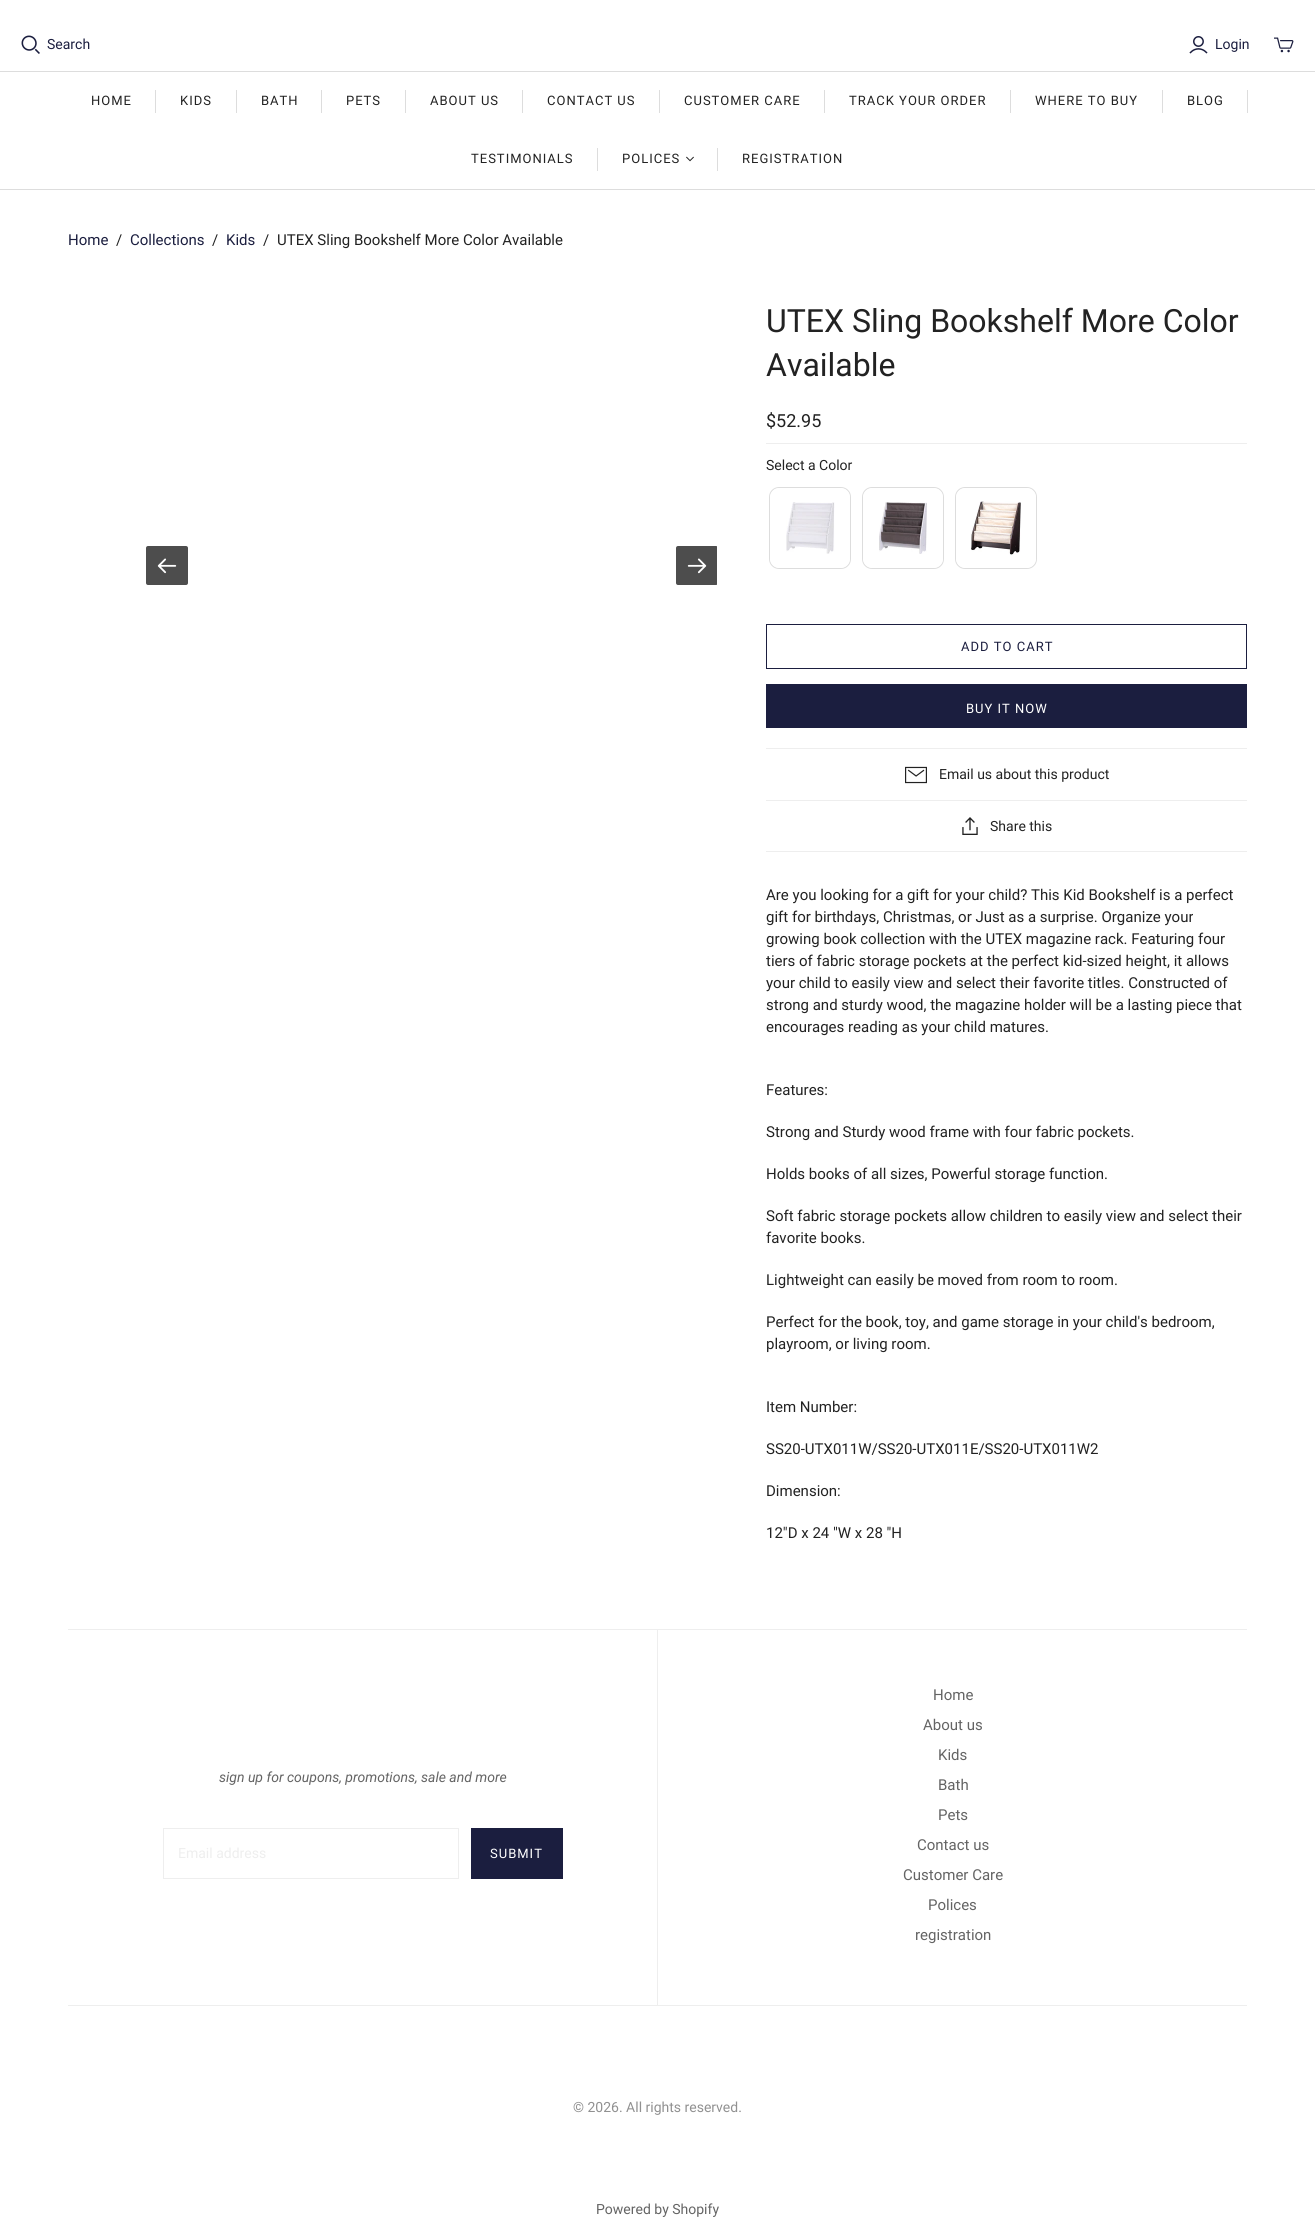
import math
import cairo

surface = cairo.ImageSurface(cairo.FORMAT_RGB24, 1315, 2234)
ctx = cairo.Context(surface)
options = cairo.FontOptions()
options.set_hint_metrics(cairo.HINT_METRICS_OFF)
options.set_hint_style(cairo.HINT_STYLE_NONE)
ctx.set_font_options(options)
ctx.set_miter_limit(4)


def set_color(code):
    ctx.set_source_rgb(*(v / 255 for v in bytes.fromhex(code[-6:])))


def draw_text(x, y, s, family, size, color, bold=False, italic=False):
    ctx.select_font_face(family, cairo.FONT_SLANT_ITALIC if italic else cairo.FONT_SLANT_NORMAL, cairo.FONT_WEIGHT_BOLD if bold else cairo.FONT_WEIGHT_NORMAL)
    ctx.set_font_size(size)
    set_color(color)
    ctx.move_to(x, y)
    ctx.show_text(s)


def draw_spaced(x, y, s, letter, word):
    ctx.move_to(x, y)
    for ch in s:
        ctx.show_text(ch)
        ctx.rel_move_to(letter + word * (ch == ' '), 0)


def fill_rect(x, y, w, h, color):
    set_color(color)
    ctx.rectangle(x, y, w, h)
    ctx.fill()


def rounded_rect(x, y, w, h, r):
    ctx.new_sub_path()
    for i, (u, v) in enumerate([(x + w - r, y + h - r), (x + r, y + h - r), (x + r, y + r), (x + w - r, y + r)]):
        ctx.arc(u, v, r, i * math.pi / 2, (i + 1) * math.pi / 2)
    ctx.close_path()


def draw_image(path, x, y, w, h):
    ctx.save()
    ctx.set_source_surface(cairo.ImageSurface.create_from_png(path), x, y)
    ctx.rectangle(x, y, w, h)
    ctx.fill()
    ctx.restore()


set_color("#ffffff")
ctx.paint()
draw_image("assets/img1.png", 21, 35, 19, 19)
draw_text(47, 49, "Search", "Roboto", 14, "#1b1e3f")
draw_image("assets/img2.png", 1189, 36, 19, 18)
draw_text(1215, 49, "Login", "Roboto", 14, "#1b1e3f")
draw_image("assets/img3.png", 1274, 37, 20, 16)
fill_rect(0, 71, 1315, 1, "#dddddd")
fill_rect(0, 189, 1315, 1, "#dddddd")
ctx.set_font_size(13)
set_color("#222222")
draw_spaced(91, 105, "HOME", 1, 0)
fill_rect(155, 90, 1, 23, "#dddddd")
set_color("#222222")
draw_spaced(180, 105, "KIDS", 1, 0)
fill_rect(236, 90, 1, 23, "#dddddd")
set_color("#222222")
draw_spaced(261, 105, "BATH", 1, 0)
fill_rect(321, 90, 1, 23, "#dddddd")
set_color("#222222")
draw_spaced(346, 105, "PETS", 1, 0)
fill_rect(405, 90, 1, 23, "#dddddd")
set_color("#222222")
draw_spaced(430, 105, "ABOUT US", 1, 0)
fill_rect(522, 90, 1, 23, "#dddddd")
set_color("#222222")
draw_spaced(547, 105, "CONTACT US", 1, 0)
fill_rect(659, 90, 1, 23, "#dddddd")
set_color("#222222")
draw_spaced(684, 105, "CUSTOMER CARE", 1, 0)
fill_rect(824, 90, 1, 23, "#dddddd")
set_color("#222222")
draw_spaced(849, 105, "TRACK YOUR ORDER", 1, 0)
fill_rect(1010, 90, 1, 23, "#dddddd")
set_color("#222222")
draw_spaced(1035, 105, "WHERE TO BUY", 1, 0)
fill_rect(1162, 90, 1, 23, "#dddddd")
set_color("#222222")
draw_spaced(1187, 105, "BLOG", 1, 0)
fill_rect(1247, 90, 1, 23, "#dddddd")
set_color("#222222")
draw_spaced(471, 163, "TESTIMONIALS", 1, 0)
fill_rect(597, 148, 1, 23, "#dddddd")
set_color("#222222")
draw_spaced(622, 163, "POLICES", 1, 0)
draw_image("assets/img4.png", 686, 156, 8, 6)
fill_rect(717, 148, 1, 23, "#dddddd")
set_color("#222222")
draw_spaced(742, 163, "REGISTRATION", 1, 0)
draw_text(68, 245, "Home", "Roboto", 15, "#1b1e3f")
draw_text(116, 245, "/", "Roboto", 15, "#222222")
draw_text(130, 245, "Collections", "Roboto", 15, "#1b1e3f")
draw_text(212, 245, "/", "Roboto", 15, "#222222")
draw_text(226, 245, "Kids", "Roboto", 15, "#1b1e3f")
draw_text(263, 245, "/", "Roboto", 15, "#222222")
draw_text(277, 245, "UTEX Sling Bookshelf More Color Available", "Roboto", 15, "#222222")
set_color("#4d4d4d")
rounded_rect(146, 546, 42, 39, 2)
ctx.fill()
draw_image("assets/img5.png", 157, 558, 20, 16)
ctx.save()
ctx.rectangle(68, 281, 649, 510)
ctx.clip()
rounded_rect(676, 546, 42, 39, 2)
ctx.fill()
ctx.restore()
draw_image("assets/img6.png", 687, 558, 20, 16)
draw_text(766, 332, "UTEX Sling Bookshelf More Color", "Roboto", 32, "#222222")
draw_text(766, 376, "Available", "Roboto", 32, "#222222")
fill_rect(766, 443, 481, 1, "#eeeeee")
draw_text(766, 427, "$52.95", "Roboto", 18, "#222222")
draw_text(766, 470, "Select a Color", "Roboto", 14, "#222222")
rounded_rect(769.5, 487.5, 81, 81, 9.5)
set_color("#dddddd")
ctx.set_line_width(1)
ctx.stroke()
set_color("#ffffff")
rounded_rect(770, 488, 80, 80, 10)
ctx.fill()
draw_image("assets/img7.png", 786, 502, 49, 52)
rounded_rect(862.5, 487.5, 81, 81, 9.5)
set_color("#dddddd")
ctx.stroke()
set_color("#ffffff")
rounded_rect(863, 488, 80, 80, 10)
ctx.fill()
draw_image("assets/img8.png", 879, 502, 48, 52)
rounded_rect(955.5, 487.5, 81, 81, 9.5)
set_color("#dddddd")
ctx.stroke()
set_color("#ffffff")
rounded_rect(956, 488, 80, 80, 10)
ctx.fill()
draw_image("assets/img9.png", 971, 501, 50, 55)
fill_rect(766, 748, 481, 1, "#eeeeee")
ctx.rectangle(766.5, 624.5, 480, 44)
set_color("#1b1e3f")
ctx.stroke()
ctx.set_font_size(13)
draw_spaced(961, 651, "ADD TO CART", 1, 0)
fill_rect(766, 684, 481, 44, "#1b1e3f")
set_color("#ffffff")
draw_spaced(966, 713, "BUY IT NOW", 1, 0)
fill_rect(766, 800, 481, 1, "#eeeeee")
draw_image("assets/img10.png", 905, 766, 22, 18)
draw_text(939, 779, "Email us about this product", "Roboto", 14, "#222222")
fill_rect(766, 851, 481, 1, "#eeeeee")
draw_image("assets/img11.png", 962, 817, 16, 18)
draw_text(990, 831, "Share this", "Roboto", 14, "#222222")
draw_text(766, 900, "Are you looking for a gift for your child? This Kid Bookshelf is a perfect", "Roboto", 15, "#222222")
draw_text(766, 922, "gift for birthdays, Christmas, or Just as a surprise. Organize your", "Roboto", 15, "#222222")
draw_text(766, 944, "growing book collection with the UTEX magazine rack. Featuring four", "Roboto", 15, "#222222")
draw_text(766, 966, "tiers of fabric storage pockets at the perfect kid-sized height, it allows", "Roboto", 15, "#222222")
draw_text(766, 988, "your child to easily view and select their favorite titles. Constructed of", "Roboto", 15, "#222222")
draw_text(766, 1010, "strong and sturdy wood, the magazine holder will be a lasting piece that", "Roboto", 15, "#222222")
draw_text(766, 1032, "encourages reading as your child matures.", "Roboto", 15, "#222222")
draw_text(766, 1095, "Features:", "Roboto", 15, "#222222")
draw_text(766, 1137, "Strong and Sturdy wood frame with four fabric pockets.", "Roboto", 15, "#222222")
draw_text(766, 1179, "Holds books of all sizes, Powerful storage function.", "Roboto", 15, "#222222")
draw_text(766, 1221, "Soft fabric storage pockets allow children to easily view and select their", "Roboto", 15, "#222222")
draw_text(766, 1243, "favorite books.", "Roboto", 15, "#222222")
draw_text(766, 1285, "Lightweight can easily be moved from room to room.", "Roboto", 15, "#222222")
draw_text(766, 1327, "Perfect for the book, toy, and game storage in your child's bedroom,", "Roboto", 15, "#222222")
draw_text(766, 1349, "playroom, or living room.", "Roboto", 15, "#222222")
draw_text(766, 1412, "Item Number:", "Roboto", 15, "#222222")
draw_text(766, 1454, "SS20-UTX011W/SS20-UTX011E/SS20-UTX011W2", "Roboto", 15, "#222222")
draw_text(766, 1496, "Dimension:", "Roboto", 15, "#222222")
draw_text(766, 1538, "12\"D x 24 \"W x 28 \"H", "Roboto", 15, "#222222")
fill_rect(68, 1629, 1179, 1, "#eeeeee")
fill_rect(68, 2005, 1179, 1, "#eeeeee")
draw_text(219, 1782, "sign up for coupons, promotions, sale and more", "Roboto", 14, "#646464", italic=True)
ctx.rectangle(163.5, 1828.5, 295, 50)
set_color("#eeeeee")
ctx.stroke()
draw_text(178, 1858, "Email address", "Roboto", 14, "#eeeeee")
fill_rect(471, 1828, 92, 51, "#1b1e3f")
ctx.set_font_size(13)
set_color("#ffffff")
draw_spaced(490, 1858, "SUBMIT", 1, 0)
fill_rect(657, 1630, 1, 375, "#eeeeee")
draw_text(933, 1700, "Home", "Roboto", 15, "#646464")
draw_text(923, 1730, "About us", "Roboto", 15, "#646464")
draw_text(938, 1760, "Kids", "Roboto", 15, "#646464")
draw_text(938, 1790, "Bath", "Roboto", 15, "#646464")
draw_text(938, 1820, "Pets", "Roboto", 15, "#646464")
draw_text(917, 1850, "Contact us", "Roboto", 15, "#646464")
draw_text(903, 1880, "Customer Care", "Roboto", 15, "#646464")
draw_text(928, 1910, "Polices", "Roboto", 15, "#646464")
draw_text(915, 1940, "registration", "Roboto", 15, "#646464")
draw_text(573, 2112, "© 2026. All rights reserved.", "Roboto", 14, "#919191")
draw_text(596, 2214, "Powered by Shopify", "Roboto", 14, "#646464")
surface.write_to_png("output.png")
